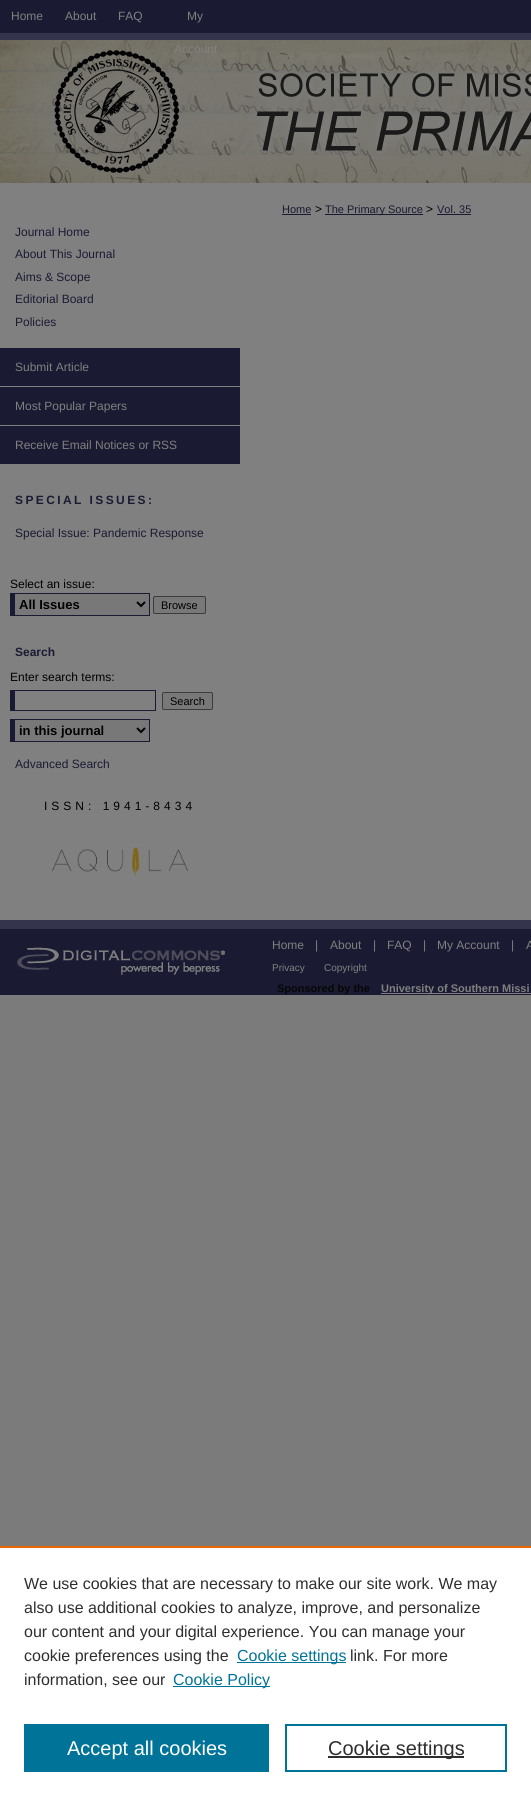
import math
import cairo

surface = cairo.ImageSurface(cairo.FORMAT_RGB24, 531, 1796)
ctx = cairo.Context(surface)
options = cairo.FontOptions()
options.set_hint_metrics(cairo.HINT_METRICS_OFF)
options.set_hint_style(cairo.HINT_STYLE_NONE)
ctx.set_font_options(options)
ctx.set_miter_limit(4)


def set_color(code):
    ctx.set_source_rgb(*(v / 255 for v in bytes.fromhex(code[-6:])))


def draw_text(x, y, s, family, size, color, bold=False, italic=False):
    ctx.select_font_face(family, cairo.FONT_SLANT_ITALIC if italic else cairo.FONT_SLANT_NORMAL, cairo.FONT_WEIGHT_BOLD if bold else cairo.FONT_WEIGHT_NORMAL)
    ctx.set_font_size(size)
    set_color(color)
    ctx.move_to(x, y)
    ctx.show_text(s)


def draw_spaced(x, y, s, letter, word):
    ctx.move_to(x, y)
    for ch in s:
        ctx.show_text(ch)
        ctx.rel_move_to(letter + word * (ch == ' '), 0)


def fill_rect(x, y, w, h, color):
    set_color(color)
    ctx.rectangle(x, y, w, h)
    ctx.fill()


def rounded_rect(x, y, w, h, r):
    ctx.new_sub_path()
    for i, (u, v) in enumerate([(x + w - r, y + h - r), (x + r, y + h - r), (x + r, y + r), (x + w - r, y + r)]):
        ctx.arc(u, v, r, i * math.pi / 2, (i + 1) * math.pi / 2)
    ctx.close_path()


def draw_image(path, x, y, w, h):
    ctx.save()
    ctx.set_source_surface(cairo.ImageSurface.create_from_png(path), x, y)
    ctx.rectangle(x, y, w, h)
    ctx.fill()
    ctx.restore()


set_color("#7b7b7b")
ctx.paint()
fill_rect(0, 0, 531, 33, "#1a1a33")
fill_rect(0, 33, 531, 7, "#34354d")
draw_text(11, 20, "Home", "Liberation Sans", 12, "#808080")
draw_text(65, 20, "About", "Liberation Sans", 12, "#808080")
draw_text(118, 20, "FAQ", "Liberation Sans", 12, "#808080")
draw_text(187, 20, "My", "Liberation Sans", 12, "#808080")
draw_image("assets/img1.png", 0, 40, 531, 143)
draw_text(174, 53, "Account", "Liberation Sans", 12, "#808080")
fill_rect(0, 183, 531, 737, "#808080")
draw_text(282, 213, "Home", "Liberation Sans", 11, "#1a1a33")
fill_rect(282, 214, 29, 1, "#1a1a33")
draw_text(315, 213, ">", "Liberation Sans", 12, "#000000")
fill_rect(325, 214, 98, 1, "#1a1a33")
draw_text(325, 213, "The Primary Source", "Liberation Sans", 11, "#1a1a33")
draw_text(426, 213, ">", "Liberation Sans", 12, "#000000")
draw_text(437, 213, "Vol. 35", "Liberation Sans", 11, "#1a1a33")
fill_rect(437, 214, 34, 1, "#1a1a33")
draw_text(15, 236, "Journal Home", "Liberation Sans", 12, "#1a1a33")
draw_text(15, 258, "About This Journal", "Liberation Sans", 12, "#1a1a33")
draw_text(15, 281, "Aims & Scope", "Liberation Sans", 12, "#1a1a33")
draw_text(15, 303, "Editorial Board", "Liberation Sans", 12, "#1a1a33")
draw_text(15, 326, "Policies", "Liberation Sans", 12, "#1a1a33")
fill_rect(0, 348, 240, 38, "#1a1a33")
draw_text(15, 371, "Submit Article", "Liberation Sans", 12, "#808080")
fill_rect(0, 387, 240, 38, "#1a1a33")
draw_text(15, 410, "Most Popular Papers", "Liberation Sans", 12, "#808080")
fill_rect(0, 426, 240, 38, "#1a1a33")
draw_text(15, 449, "Receive Email Notices or RSS", "Liberation Sans", 12, "#808080")
ctx.select_font_face("Liberation Sans", cairo.FONT_SLANT_NORMAL, cairo.FONT_WEIGHT_BOLD)
set_color("#1a1a33")
draw_spaced(15, 504, "SPECIAL ISSUES:", 2.4, 0)
draw_text(15, 537, "Special Issue: Pandemic Response", "Liberation Sans", 12, "#1a1a33")
draw_text(10, 588, "Select an issue:", "Liberation Sans", 12, "#000000")
fill_rect(15, 594, 134, 21, "#787878")
fill_rect(10, 593, 140, 1, "#1a1a33")
fill_rect(149, 593, 1, 23, "#1a1a33")
fill_rect(10, 615, 140, 1, "#1a1a33")
fill_rect(10, 593, 5, 23, "#1a1a33")
ctx.new_path()
ctx.move_to(137, 602)
ctx.line_to(141, 606)
ctx.line_to(145, 602)
set_color("#000000")
ctx.stroke()
draw_text(19, 609, "All Issues", "Liberation Sans", 13, "#000000", bold=True)
set_color("#787878")
rounded_rect(153.5, 596.5, 52, 17, 1.5)
ctx.fill_preserve()
set_color("#3b3b3b")
ctx.set_line_width(1)
ctx.stroke()
draw_text(161, 609, "Browse", "Liberation Sans", 11, "#000000")
draw_text(15, 656, "Search", "Liberation Sans", 12, "#1a1a33", bold=True)
draw_text(10, 681, "Enter search terms:", "Liberation Sans", 12, "#000000")
fill_rect(10, 690, 146, 1, "#1a1a33")
fill_rect(155, 690, 1, 21, "#1a1a33")
fill_rect(10, 710, 146, 1, "#1a1a33")
fill_rect(10, 690, 5, 21, "#1a1a33")
set_color("#787878")
rounded_rect(162.5, 692.5, 50, 17, 1.5)
ctx.fill_preserve()
set_color("#3b3b3b")
ctx.stroke()
draw_text(170, 705, "Search", "Liberation Sans", 11, "#000000")
fill_rect(15, 720, 134, 21, "#787878")
fill_rect(10, 719, 140, 1, "#1a1a33")
fill_rect(149, 719, 1, 23, "#1a1a33")
fill_rect(10, 741, 140, 1, "#1a1a33")
fill_rect(10, 719, 5, 23, "#1a1a33")
ctx.new_path()
ctx.move_to(137, 728)
ctx.line_to(141, 732)
ctx.line_to(145, 728)
set_color("#000000")
ctx.set_line_width(2)
ctx.stroke()
draw_text(19, 735, "in this journal", "Liberation Sans", 13, "#000000", bold=True)
draw_text(15, 768, "Advanced Search", "Liberation Sans", 12, "#1a1a33")
set_color("#000000")
draw_spaced(44, 810, "ISSN: 1941-8434", 4, 0)
draw_image("assets/img2.png", 52, 847, 136, 30)
fill_rect(0, 929, 531, 66, "#1a1a33")
fill_rect(0, 920, 531, 9, "#34354d")
draw_image("assets/img3.png", 17, 947, 208, 28)
draw_text(272, 949, "Home", "Liberation Sans", 12, "#808080")
draw_text(315, 949, "|", "Liberation Sans", 12, "#808080")
draw_text(330, 949, "About", "Liberation Sans", 12, "#808080")
draw_text(373, 949, "|", "Liberation Sans", 12, "#808080")
draw_text(387, 949, "FAQ", "Liberation Sans", 12, "#808080")
draw_text(423, 949, "|", "Liberation Sans", 12, "#808080")
draw_text(437, 949, "My Account", "Liberation Sans", 12, "#808080")
draw_text(511, 949, "|", "Liberation Sans", 12, "#808080")
draw_text(526, 949, "A", "Liberation Sans", 12, "#808080")
draw_text(272, 971, "Privacy", "Liberation Sans", 10, "#808080")
draw_text(324, 971, "Copyright", "Liberation Sans", 10, "#808080")
draw_text(277, 992, "Sponsored by the", "Liberation Sans", 11, "#060606", bold=True)
fill_rect(381, 993, 150, 1, "#808080")
draw_text(381, 992, "University of Southern Missi", "Liberation Sans", 11, "#808080", bold=True)
fill_rect(0, 1548, 531, 248, "#ffffff")
fill_rect(0, 1546, 531, 2, "#eb6500")
draw_text(24, 1589, "We use cookies that are necessary to make our site work. We may", "Liberation Sans", 16, "#2e2e2e")
draw_text(24, 1613, "also use additional cookies to analyze, improve, and personalize", "Liberation Sans", 16, "#2e2e2e")
draw_text(24, 1637, "our content and your digital experience. You can manage your", "Liberation Sans", 16, "#2e2e2e")
draw_text(24, 1661, "cookie preferences using the", "Liberation Sans", 16, "#2e2e2e")
fill_rect(237, 1662, 109, 1, "#007398")
draw_text(237, 1661, "Cookie settings", "Liberation Sans", 16, "#007398")
draw_text(350, 1661, "link. For more", "Liberation Sans", 16, "#2e2e2e")
draw_text(24, 1685, "information, see our", "Liberation Sans", 16, "#2e2e2e")
fill_rect(173, 1686, 97, 1, "#007398")
draw_text(173, 1685, "Cookie Policy", "Liberation Sans", 16, "#007398")
fill_rect(24, 1724, 245, 48, "#007398")
draw_text(67, 1755, "Accept all cookies", "Liberation Sans", 20, "#ffffff")
ctx.rectangle(286, 1725, 220, 46)
set_color("#007398")
ctx.stroke()
fill_rect(328, 1756, 136, 2, "#2e2e2e")
draw_text(328, 1755, "Cookie settings", "Liberation Sans", 20, "#2e2e2e")
surface.write_to_png("output.png")
